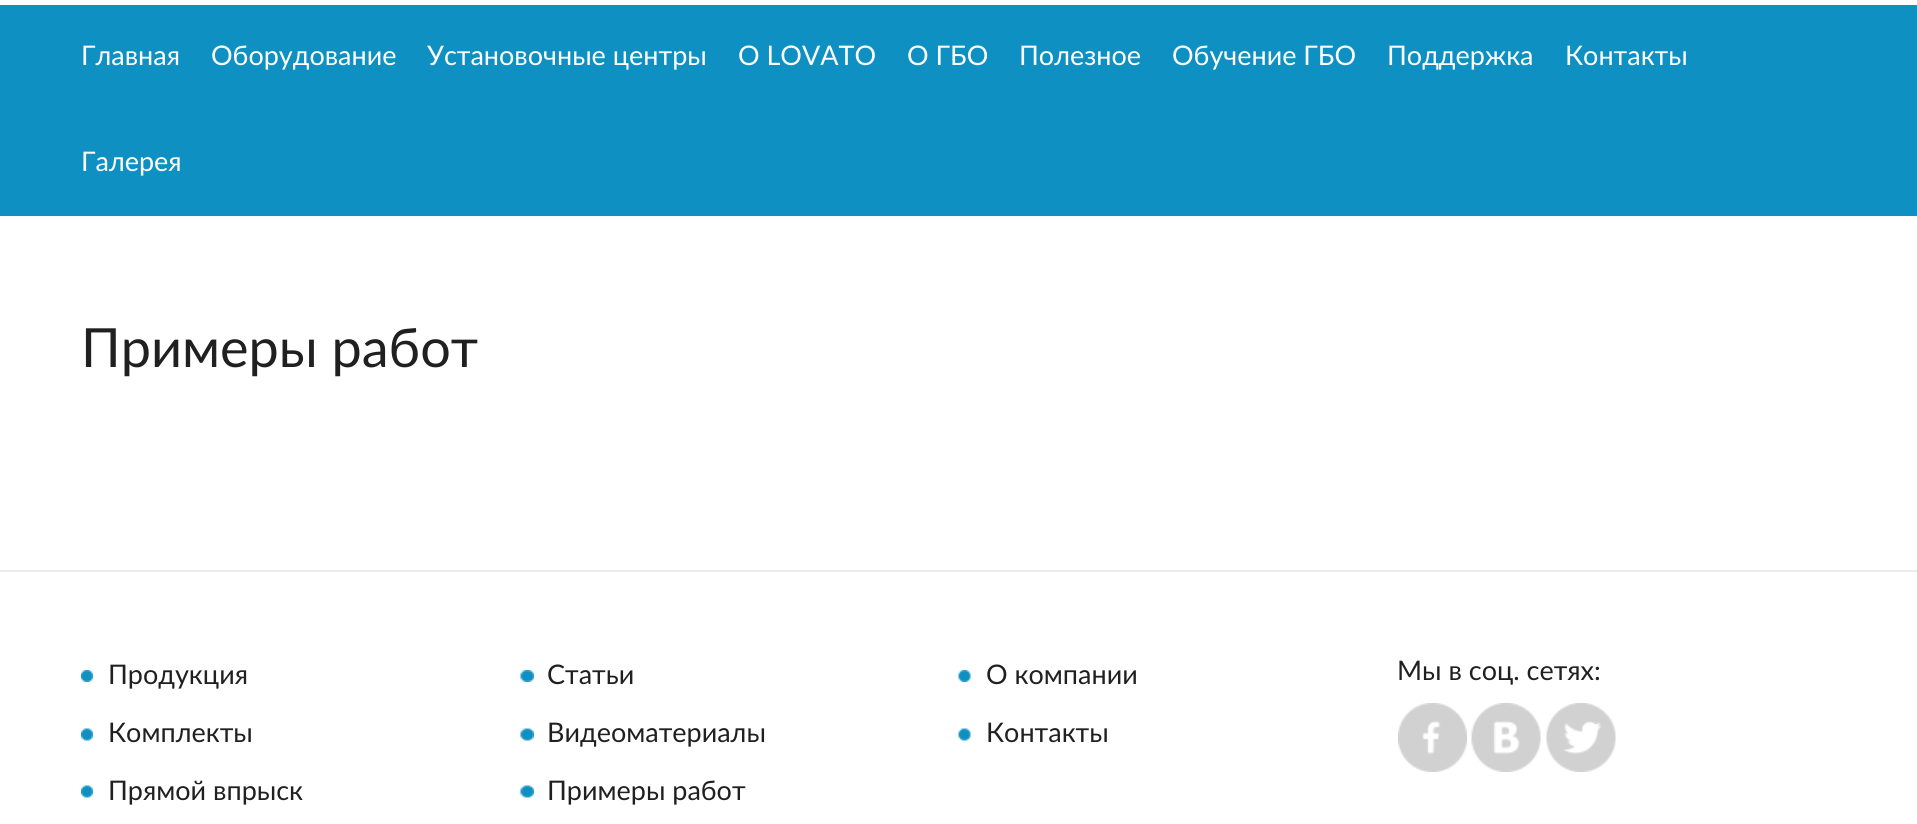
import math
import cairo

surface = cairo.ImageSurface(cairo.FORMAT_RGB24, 1917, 824)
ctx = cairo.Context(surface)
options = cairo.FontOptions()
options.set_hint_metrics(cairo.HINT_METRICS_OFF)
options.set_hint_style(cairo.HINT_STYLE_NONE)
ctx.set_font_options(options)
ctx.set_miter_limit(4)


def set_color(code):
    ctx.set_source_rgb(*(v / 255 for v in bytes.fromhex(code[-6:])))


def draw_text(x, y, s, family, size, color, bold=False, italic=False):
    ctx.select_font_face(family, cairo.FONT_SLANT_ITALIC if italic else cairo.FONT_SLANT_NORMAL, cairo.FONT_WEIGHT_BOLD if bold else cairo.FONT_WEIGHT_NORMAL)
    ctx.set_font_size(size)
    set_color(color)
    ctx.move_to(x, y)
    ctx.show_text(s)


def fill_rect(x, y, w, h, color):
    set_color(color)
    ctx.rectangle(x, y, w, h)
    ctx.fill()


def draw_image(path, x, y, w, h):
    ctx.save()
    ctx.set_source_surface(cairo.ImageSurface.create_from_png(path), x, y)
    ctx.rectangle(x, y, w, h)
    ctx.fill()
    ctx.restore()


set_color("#ffffff")
ctx.paint()
fill_rect(0, 5, 1917, 211, "#0e90c2")
draw_text(81, 65, "Главная", "Lato", 27, "#ffffff")
draw_text(211, 65, "Оборудование", "Lato", 27, "#ffffff")
draw_text(427, 65, "Установочные центры", "Lato", 27, "#ffffff")
draw_text(738, 65, "О LOVATO", "Lato", 27, "#ffffff")
draw_text(907, 65, "О ГБО", "Lato", 27, "#ffffff")
draw_text(1019, 65, "Полезное", "Lato", 27, "#ffffff")
draw_text(1172, 65, "Обучение ГБО", "Lato", 27, "#ffffff")
draw_text(1387, 65, "Поддержка", "Lato", 27, "#ffffff")
draw_text(1565, 65, "Контакты", "Lato", 27, "#ffffff")
draw_text(81, 171, "Галерея", "Lato", 27, "#ffffff")
draw_text(81, 367, "Примеры работ", "Lato", 54, "#202020")
fill_rect(0, 570, 1917, 2, "#ededed")
draw_image("assets/img1.png", 81, 670, 12, 12)
draw_text(108, 684, "Продукция", "Lato", 27, "#202020")
draw_image("assets/img2.png", 81, 728, 12, 13)
draw_text(108, 742, "Комплекты", "Lato", 27, "#202020")
draw_image("assets/img2.png", 81, 785, 12, 13)
draw_text(108, 800, "Прямой впрыск", "Lato", 27, "#202020")
draw_image("assets/img3.png", 520, 670, 14, 12)
draw_text(547, 684, "Статьи", "Lato", 27, "#202020")
draw_image("assets/img4.png", 520, 728, 14, 13)
draw_text(547, 742, "Видеоматериалы", "Lato", 27, "#202020")
draw_image("assets/img4.png", 520, 785, 14, 13)
draw_text(547, 800, "Примеры работ", "Lato", 27, "#202020")
draw_image("assets/img5.png", 958, 670, 13, 12)
draw_text(986, 684, "О компании", "Lato", 27, "#202020")
draw_image("assets/img6.png", 958, 728, 13, 13)
draw_text(986, 742, "Контакты", "Lato", 27, "#202020")
draw_text(1397, 680, "Мы в соц. сетях:", "Lato", 27, "#202020")
draw_image("assets/img7.png", 1398, 703, 69, 69)
draw_image("assets/img8.png", 1471, 703, 70, 69)
draw_image("assets/img9.png", 1546, 703, 70, 69)
surface.write_to_png("output.png")
